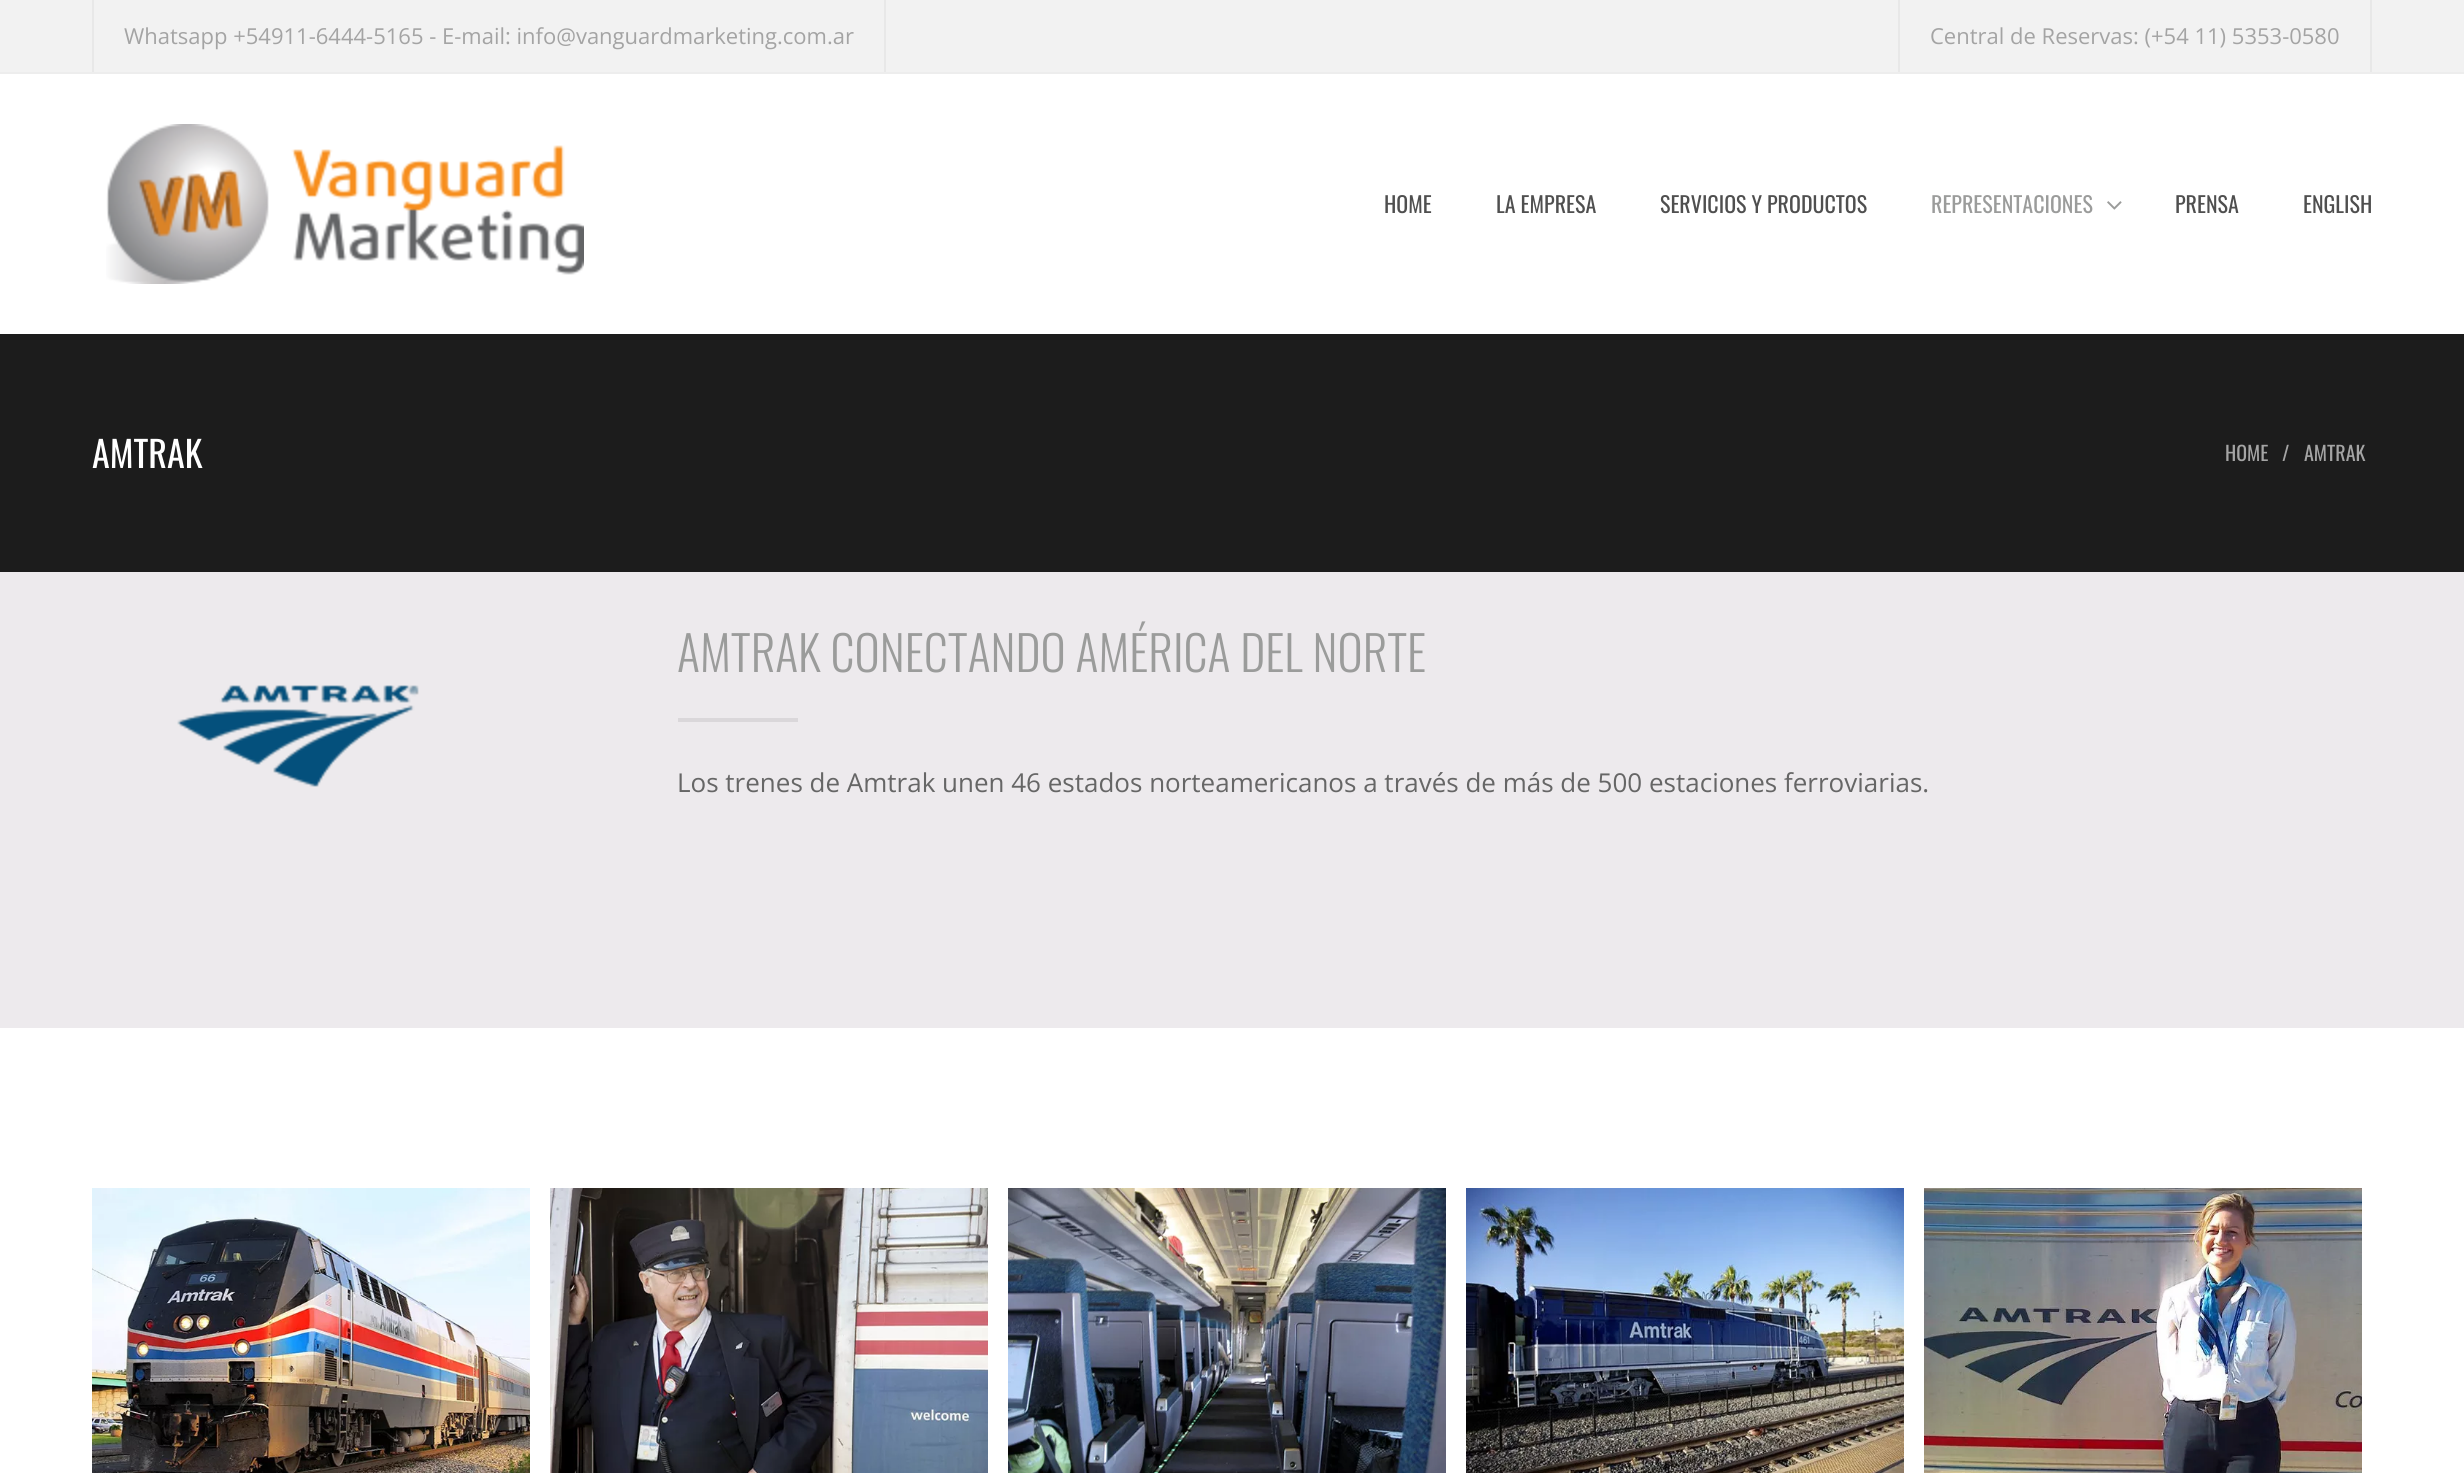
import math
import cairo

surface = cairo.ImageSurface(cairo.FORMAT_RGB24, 2464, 1473)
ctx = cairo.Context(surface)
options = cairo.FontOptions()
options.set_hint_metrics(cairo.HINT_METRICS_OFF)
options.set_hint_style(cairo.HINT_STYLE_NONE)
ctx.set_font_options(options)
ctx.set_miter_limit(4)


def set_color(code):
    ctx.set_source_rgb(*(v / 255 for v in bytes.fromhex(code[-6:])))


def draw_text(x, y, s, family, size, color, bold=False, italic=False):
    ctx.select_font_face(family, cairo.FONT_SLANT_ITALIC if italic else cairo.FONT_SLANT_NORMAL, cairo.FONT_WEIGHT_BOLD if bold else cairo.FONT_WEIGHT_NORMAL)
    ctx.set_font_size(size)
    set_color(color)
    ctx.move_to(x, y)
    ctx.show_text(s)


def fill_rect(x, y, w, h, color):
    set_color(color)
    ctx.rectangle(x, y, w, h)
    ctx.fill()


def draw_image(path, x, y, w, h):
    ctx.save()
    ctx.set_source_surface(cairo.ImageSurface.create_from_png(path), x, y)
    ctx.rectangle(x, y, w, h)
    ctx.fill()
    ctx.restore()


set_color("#ffffff")
ctx.paint()
fill_rect(0, 0, 2464, 72, "#f2f2f2")
fill_rect(0, 72, 2464, 2, "#ededed")
fill_rect(884, 0, 2, 72, "#e8e8e8")
fill_rect(92, 0, 2, 72, "#e8e8e8")
draw_text(124, 44, "Whatsapp +54911-6444-5165 - E-mail: info@vanguardmarketing.com.ar", "Open Sans", 22, "#a4a4a4")
fill_rect(2370, 0, 2, 72, "#e8e8e8")
fill_rect(1898, 0, 2, 72, "#e8e8e8")
draw_text(1930, 44, "Central de Reservas: (+54 11) 5353-0580", "Open Sans", 22, "#a4a4a4")
draw_image("assets/img1.png", 106, 124, 478, 160)
draw_text(1384, 213, "HOME", "Oswald", 22, "#4f4f4f")
draw_text(1496, 213, "LA EMPRESA", "Oswald", 22, "#4f4f4f")
draw_text(1660, 213, "SERVICIOS Y PRODUCTOS", "Oswald", 22, "#4f4f4f")
draw_text(1931, 213, "REPRESENTACIONES", "Oswald", 22, "#9b9c9b")
draw_image("assets/img2.png", 2107, 201, 15, 9)
draw_text(2175, 213, "PRENSA", "Oswald", 22, "#4f4f4f")
draw_text(2303, 213, "ENGLISH", "Oswald", 22, "#4f4f4f")
fill_rect(0, 334, 2464, 238, "#1c1c1c")
draw_text(92, 468, "AMTRAK", "Oswald", 36, "#ffffff")
draw_text(2225, 461, "HOME", "Oswald", 20, "#a4a4a4")
draw_text(2282, 461, "/", "Oswald", 20, "#a4a4a4")
draw_text(2304, 461, "AMTRAK", "Oswald", 20, "#a4a4a4")
fill_rect(0, 572, 2464, 456, "#edeaed")
draw_image("assets/img3.png", 177, 685, 242, 102)
draw_text(677, 672, "AMTRAK CONECTANDO AMÉRICA DEL NORTE", "Oswald Light", 48, "#9b9c9b")
fill_rect(678, 718, 120, 4, "#dad7da")
draw_text(677, 792, "Los trenes de Amtrak unen 46 estados norteamericanos a través de más de 500 estaciones ferroviarias.", "Open Sans", 26, "#666666")
draw_image("assets/img4.png", 92, 1188, 438, 285)
draw_image("assets/img5.png", 550, 1188, 438, 285)
draw_image("assets/img6.png", 1008, 1188, 438, 285)
draw_image("assets/img7.png", 1466, 1188, 438, 285)
draw_image("assets/img8.png", 1924, 1188, 438, 285)
surface.write_to_png("output.png")
